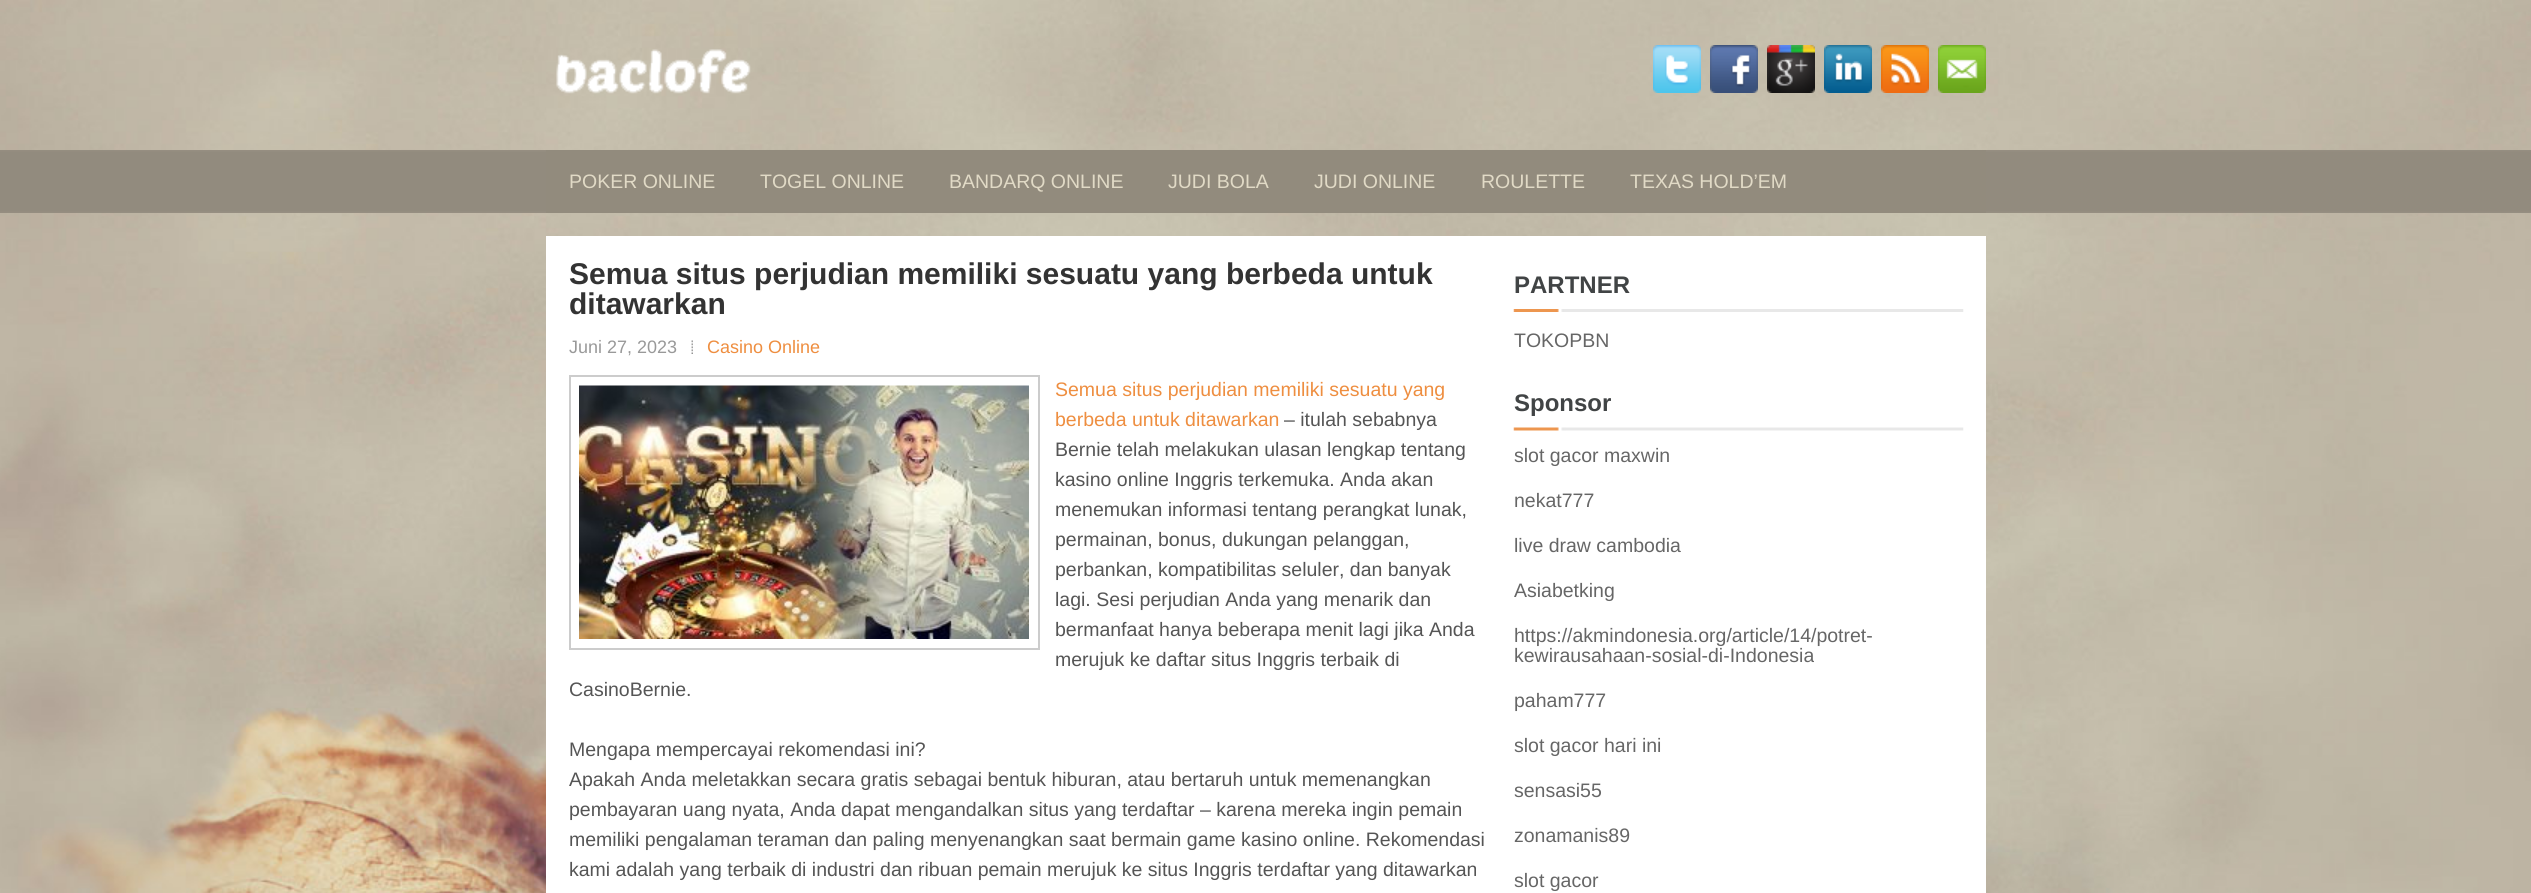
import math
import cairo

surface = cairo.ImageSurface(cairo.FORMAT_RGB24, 2531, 893)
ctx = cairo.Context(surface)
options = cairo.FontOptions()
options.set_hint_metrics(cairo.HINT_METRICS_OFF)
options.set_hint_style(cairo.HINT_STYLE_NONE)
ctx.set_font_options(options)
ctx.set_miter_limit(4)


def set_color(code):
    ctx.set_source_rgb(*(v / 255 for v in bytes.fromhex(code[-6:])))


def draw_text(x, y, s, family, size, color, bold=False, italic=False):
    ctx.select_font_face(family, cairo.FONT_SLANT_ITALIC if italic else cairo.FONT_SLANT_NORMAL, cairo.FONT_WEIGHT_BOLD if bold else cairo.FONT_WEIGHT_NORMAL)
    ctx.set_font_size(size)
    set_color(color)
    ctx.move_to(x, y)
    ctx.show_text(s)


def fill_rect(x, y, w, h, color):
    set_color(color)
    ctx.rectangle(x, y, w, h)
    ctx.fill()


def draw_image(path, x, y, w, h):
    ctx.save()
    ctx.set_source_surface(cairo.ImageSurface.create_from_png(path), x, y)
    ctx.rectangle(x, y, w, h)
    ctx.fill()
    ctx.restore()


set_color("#ffffff")
ctx.paint()
draw_image("assets/img1.png", 0, 0, 2531, 893)
draw_image("assets/img2.png", 556, 49, 195, 45)
draw_image("assets/img3.png", 1653, 45, 48, 48)
draw_image("assets/img4.png", 1710, 45, 48, 48)
draw_image("assets/img5.png", 1767, 45, 48, 48)
draw_image("assets/img6.png", 1824, 45, 48, 48)
draw_image("assets/img7.png", 1881, 45, 48, 48)
draw_image("assets/img8.png", 1938, 45, 48, 48)
fill_rect(546, 150, 1440, 63, "#928b7d")
draw_text(569, 188, "POKER ONLINE", "Liberation Sans", 19.5, "#e1dac6")
draw_text(760, 188, "TOGEL ONLINE", "Liberation Sans", 19.5, "#e1dac6")
draw_text(949, 188, "BANDARQ ONLINE", "Liberation Sans", 19.5, "#e1dac6")
draw_text(1168, 188, "JUDI BOLA", "Liberation Sans", 19.5, "#e1dac6")
draw_text(1314, 188, "JUDI ONLINE", "Liberation Sans", 19.5, "#e1dac6")
draw_text(1481, 188, "ROULETTE", "Liberation Sans", 19.5, "#e1dac6")
draw_text(1630, 188, "TEXAS HOLD’EM", "Liberation Sans", 19.5, "#e1dac6")
fill_rect(546, 236, 1440, 657, "#ffffff")
draw_text(569, 284, "Semua situs perjudian memiliki sesuatu yang berbeda untuk", "Liberation Sans", 30, "#333333", bold=True)
draw_text(569, 314, "ditawarkan", "Liberation Sans", 30, "#333333", bold=True)
draw_text(569, 353, "Juni 27, 2023", "Liberation Sans", 18, "#999999")
draw_image("assets/img9.png", 691, 340, 2, 14)
draw_text(707, 353, "Casino Online", "Liberation Sans", 18, "#ee8e40")
ctx.rectangle(570, 376, 469, 273)
set_color("#cccccc")
ctx.stroke()
draw_image("assets/img10.png", 579, 385, 450, 254)
draw_text(1055, 396, "Semua situs perjudian memiliki sesuatu yang", "Liberation Sans", 19.5, "#ee8e40")
draw_text(1055, 426, "berbeda untuk ditawarkan", "Liberation Sans", 19.5, "#ee8e40")
draw_text(1284, 426, "– itulah sebabnya", "Liberation Sans", 19.5, "#555555")
draw_text(1055, 456, "Bernie telah melakukan ulasan lengkap tentang", "Liberation Sans", 19.5, "#555555")
draw_text(1055, 486, "kasino online Inggris terkemuka. Anda akan", "Liberation Sans", 19.5, "#555555")
draw_text(1055, 516, "menemukan informasi tentang perangkat lunak,", "Liberation Sans", 19.5, "#555555")
draw_text(1055, 546, "permainan, bonus, dukungan pelanggan,", "Liberation Sans", 19.5, "#555555")
draw_text(1055, 576, "perbankan, kompatibilitas seluler, dan banyak", "Liberation Sans", 19.5, "#555555")
draw_text(1055, 606, "lagi. Sesi perjudian Anda yang menarik dan", "Liberation Sans", 19.5, "#555555")
draw_text(1055, 636, "bermanfaat hanya beberapa menit lagi jika Anda", "Liberation Sans", 19.5, "#555555")
draw_text(1055, 666, "merujuk ke daftar situs Inggris terbaik di", "Liberation Sans", 19.5, "#555555")
draw_text(569, 696, "CasinoBernie.", "Liberation Sans", 19.5, "#555555")
draw_text(569, 756, "Mengapa mempercayai rekomendasi ini?", "Liberation Sans", 19.5, "#555555")
draw_text(569, 786, "Apakah Anda meletakkan secara gratis sebagai bentuk hiburan, atau bertaruh untuk memenangkan", "Liberation Sans", 19.5, "#555555")
draw_text(569, 816, "pembayaran uang nyata, Anda dapat mengandalkan situs yang terdaftar – karena mereka ingin pemain", "Liberation Sans", 19.5, "#555555")
draw_text(569, 846, "memiliki pengalaman teraman dan paling menyenangkan saat bermain game kasino online. Rekomendasi", "Liberation Sans", 19.5, "#555555")
draw_text(569, 876, "kami adalah yang terbaik di industri dan ribuan pemain merujuk ke situs Inggris terdaftar yang ditawarkan", "Liberation Sans", 19.5, "#555555")
draw_image("assets/img11.png", 1513, 309, 451, 3)
draw_text(1514, 293, "PARTNER", "Liberation Sans", 24, "#414445", bold=True)
draw_text(1514, 347, "TOKOPBN", "Liberation Sans", 19.5, "#666666")
draw_image("assets/img12.png", 1513, 427, 451, 4)
draw_text(1514, 411, "Sponsor", "Liberation Sans", 24, "#414445", bold=True)
draw_text(1514, 462, "slot gacor maxwin", "Liberation Sans", 19.5, "#666666")
draw_text(1514, 507, "nekat777", "Liberation Sans", 19.5, "#666666")
draw_text(1514, 552, "live draw cambodia", "Liberation Sans", 19.5, "#666666")
draw_text(1514, 597, "Asiabetking", "Liberation Sans", 19.5, "#666666")
draw_text(1514, 642, "https://akmindonesia.org/article/14/potret-", "Liberation Sans", 19.5, "#666666")
draw_text(1514, 662, "kewirausahaan-sosial-di-Indonesia", "Liberation Sans", 19.5, "#666666")
draw_text(1514, 707, "paham777", "Liberation Sans", 19.5, "#666666")
draw_text(1514, 752, "slot gacor hari ini", "Liberation Sans", 19.5, "#666666")
draw_text(1514, 797, "sensasi55", "Liberation Sans", 19.5, "#666666")
draw_text(1514, 842, "zonamanis89", "Liberation Sans", 19.5, "#666666")
draw_text(1514, 887, "slot gacor", "Liberation Sans", 19.5, "#666666")
surface.write_to_png("output.png")
